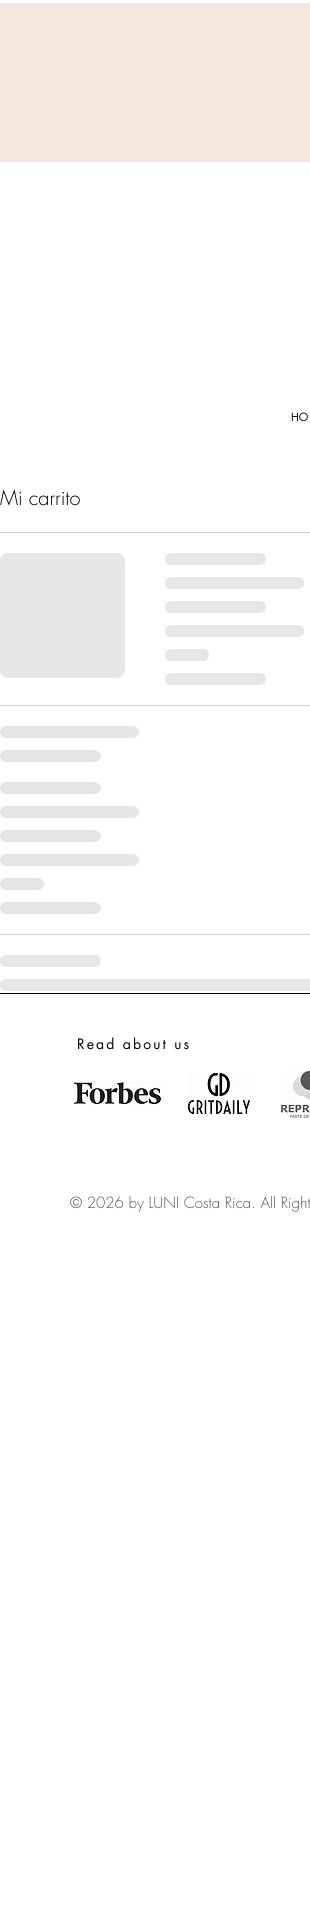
import math
import cairo

surface = cairo.ImageSurface(cairo.FORMAT_RGB24, 310, 1918)
ctx = cairo.Context(surface)
options = cairo.FontOptions()
options.set_hint_metrics(cairo.HINT_METRICS_OFF)
options.set_hint_style(cairo.HINT_STYLE_NONE)
ctx.set_font_options(options)
ctx.set_miter_limit(4)


def set_color(code):
    ctx.set_source_rgb(*(v / 255 for v in bytes.fromhex(code[-6:])))


def draw_text(x, y, s, family, size, color, bold=False, italic=False):
    ctx.select_font_face(family, cairo.FONT_SLANT_ITALIC if italic else cairo.FONT_SLANT_NORMAL, cairo.FONT_WEIGHT_BOLD if bold else cairo.FONT_WEIGHT_NORMAL)
    ctx.set_font_size(size)
    set_color(color)
    ctx.move_to(x, y)
    ctx.show_text(s)


def draw_spaced(x, y, s, letter, word):
    ctx.move_to(x, y)
    for ch in s:
        ctx.show_text(ch)
        ctx.rel_move_to(letter + word * (ch == ' '), 0)


def fill_rect(x, y, w, h, color):
    set_color(color)
    ctx.rectangle(x, y, w, h)
    ctx.fill()


def rounded_rect(x, y, w, h, r):
    ctx.new_sub_path()
    for i, (u, v) in enumerate([(x + w - r, y + h - r), (x + r, y + h - r), (x + r, y + r), (x + w - r, y + r)]):
        ctx.arc(u, v, r, i * math.pi / 2, (i + 1) * math.pi / 2)
    ctx.close_path()


def draw_image(path, x, y, w, h):
    ctx.save()
    ctx.set_source_surface(cairo.ImageSurface.create_from_png(path), x, y)
    ctx.rectangle(x, y, w, h)
    ctx.fill()
    ctx.restore()


set_color("#ffffff")
ctx.paint()
fill_rect(0, 3, 310, 159, "#f5e7df")
draw_text(291, 421, "HO", "futura", 11, "#000000")
fill_rect(0, 532, 310, 1, "#cccccc")
draw_text(0, 505, "Mi carrito", "futura Light", 20, "#000000")
gradient = cairo.LinearGradient(0, 616, 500, 616)
gradient.add_color_stop_rgba(0.25, 0.902, 0.902, 0.902, 1)
gradient.add_color_stop_rgba(0.37, 0.8, 0.8, 0.8, 1)
gradient.add_color_stop_rgba(0.63, 0.902, 0.902, 0.902, 1)
ctx.set_source(gradient)
rounded_rect(0, 553, 125, 125, 8)
ctx.fill()
gradient = cairo.LinearGradient(165, 559, 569, 559)
gradient.add_color_stop_rgba(0.25, 0.902, 0.902, 0.902, 1)
gradient.add_color_stop_rgba(0.37, 0.8, 0.8, 0.8, 1)
gradient.add_color_stop_rgba(0.63, 0.902, 0.902, 0.902, 1)
ctx.set_source(gradient)
rounded_rect(165, 553, 101, 12, 6)
ctx.fill()
gradient = cairo.LinearGradient(165, 583, 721, 583)
gradient.add_color_stop_rgba(0.25, 0.902, 0.902, 0.902, 1)
gradient.add_color_stop_rgba(0.37, 0.8, 0.8, 0.8, 1)
gradient.add_color_stop_rgba(0.63, 0.902, 0.902, 0.902, 1)
ctx.set_source(gradient)
rounded_rect(165, 577, 139, 12, 6)
ctx.fill()
gradient = cairo.LinearGradient(165, 607, 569, 607)
gradient.add_color_stop_rgba(0.25, 0.902, 0.902, 0.902, 1)
gradient.add_color_stop_rgba(0.37, 0.8, 0.8, 0.8, 1)
gradient.add_color_stop_rgba(0.63, 0.902, 0.902, 0.902, 1)
ctx.set_source(gradient)
rounded_rect(165, 601, 101, 12, 6)
ctx.fill()
gradient = cairo.LinearGradient(165, 631, 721, 631)
gradient.add_color_stop_rgba(0.25, 0.902, 0.902, 0.902, 1)
gradient.add_color_stop_rgba(0.37, 0.8, 0.8, 0.8, 1)
gradient.add_color_stop_rgba(0.63, 0.902, 0.902, 0.902, 1)
ctx.set_source(gradient)
rounded_rect(165, 625, 139, 12, 6)
ctx.fill()
gradient = cairo.LinearGradient(165, 655, 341, 655)
gradient.add_color_stop_rgba(0.25, 0.902, 0.902, 0.902, 1)
gradient.add_color_stop_rgba(0.37, 0.8, 0.8, 0.8, 1)
gradient.add_color_stop_rgba(0.63, 0.902, 0.902, 0.902, 1)
ctx.set_source(gradient)
rounded_rect(165, 649, 44, 12, 6)
ctx.fill()
gradient = cairo.LinearGradient(165, 679, 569, 679)
gradient.add_color_stop_rgba(0.25, 0.902, 0.902, 0.902, 1)
gradient.add_color_stop_rgba(0.37, 0.8, 0.8, 0.8, 1)
gradient.add_color_stop_rgba(0.63, 0.902, 0.902, 0.902, 1)
ctx.set_source(gradient)
rounded_rect(165, 673, 101, 12, 6)
ctx.fill()
fill_rect(0, 705, 310, 1, "#cccccc")
gradient = cairo.LinearGradient(0, 732, 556, 732)
gradient.add_color_stop_rgba(0.25, 0.902, 0.902, 0.902, 1)
gradient.add_color_stop_rgba(0.37, 0.8, 0.8, 0.8, 1)
gradient.add_color_stop_rgba(0.63, 0.902, 0.902, 0.902, 1)
ctx.set_source(gradient)
rounded_rect(0, 726, 139, 12, 6)
ctx.fill()
gradient = cairo.LinearGradient(0, 756, 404, 756)
gradient.add_color_stop_rgba(0.25, 0.902, 0.902, 0.902, 1)
gradient.add_color_stop_rgba(0.37, 0.8, 0.8, 0.8, 1)
gradient.add_color_stop_rgba(0.63, 0.902, 0.902, 0.902, 1)
ctx.set_source(gradient)
rounded_rect(0, 750, 101, 12, 6)
ctx.fill()
gradient = cairo.LinearGradient(0, 788, 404, 788)
gradient.add_color_stop_rgba(0.25, 0.902, 0.902, 0.902, 1)
gradient.add_color_stop_rgba(0.37, 0.8, 0.8, 0.8, 1)
gradient.add_color_stop_rgba(0.63, 0.902, 0.902, 0.902, 1)
ctx.set_source(gradient)
rounded_rect(0, 782, 101, 12, 6)
ctx.fill()
gradient = cairo.LinearGradient(0, 812, 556, 812)
gradient.add_color_stop_rgba(0.25, 0.902, 0.902, 0.902, 1)
gradient.add_color_stop_rgba(0.37, 0.8, 0.8, 0.8, 1)
gradient.add_color_stop_rgba(0.63, 0.902, 0.902, 0.902, 1)
ctx.set_source(gradient)
rounded_rect(0, 806, 139, 12, 6)
ctx.fill()
gradient = cairo.LinearGradient(0, 836, 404, 836)
gradient.add_color_stop_rgba(0.25, 0.902, 0.902, 0.902, 1)
gradient.add_color_stop_rgba(0.37, 0.8, 0.8, 0.8, 1)
gradient.add_color_stop_rgba(0.63, 0.902, 0.902, 0.902, 1)
ctx.set_source(gradient)
rounded_rect(0, 830, 101, 12, 6)
ctx.fill()
gradient = cairo.LinearGradient(0, 860, 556, 860)
gradient.add_color_stop_rgba(0.25, 0.902, 0.902, 0.902, 1)
gradient.add_color_stop_rgba(0.37, 0.8, 0.8, 0.8, 1)
gradient.add_color_stop_rgba(0.63, 0.902, 0.902, 0.902, 1)
ctx.set_source(gradient)
rounded_rect(0, 854, 139, 12, 6)
ctx.fill()
gradient = cairo.LinearGradient(0, 884, 176, 884)
gradient.add_color_stop_rgba(0.25, 0.902, 0.902, 0.902, 1)
gradient.add_color_stop_rgba(0.37, 0.8, 0.8, 0.8, 1)
gradient.add_color_stop_rgba(0.63, 0.902, 0.902, 0.902, 1)
ctx.set_source(gradient)
rounded_rect(0, 878, 44, 12, 6)
ctx.fill()
gradient = cairo.LinearGradient(0, 908, 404, 908)
gradient.add_color_stop_rgba(0.25, 0.902, 0.902, 0.902, 1)
gradient.add_color_stop_rgba(0.37, 0.8, 0.8, 0.8, 1)
gradient.add_color_stop_rgba(0.63, 0.902, 0.902, 0.902, 1)
ctx.set_source(gradient)
rounded_rect(0, 902, 101, 12, 6)
ctx.fill()
fill_rect(0, 934, 310, 1, "#cccccc")
gradient = cairo.LinearGradient(0, 961, 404, 961)
gradient.add_color_stop_rgba(0.25, 0.902, 0.902, 0.902, 1)
gradient.add_color_stop_rgba(0.37, 0.8, 0.8, 0.8, 1)
gradient.add_color_stop_rgba(0.63, 0.902, 0.902, 0.902, 1)
ctx.set_source(gradient)
rounded_rect(0, 955, 101, 12, 6)
ctx.fill()
gradient = cairo.LinearGradient(0, 985, 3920, 985)
gradient.add_color_stop_rgba(0.25, 0.902, 0.902, 0.902, 1)
gradient.add_color_stop_rgba(0.37, 0.8, 0.8, 0.8, 1)
gradient.add_color_stop_rgba(0.63, 0.902, 0.902, 0.902, 1)
ctx.set_source(gradient)
rounded_rect(0, 979, 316, 12, 6)
ctx.fill()
fill_rect(0, 993, 310, 1, "#000000")
ctx.select_font_face("futura")
ctx.set_font_size(14)
draw_spaced(77, 1049, "Read about us", 2.1, 0)
draw_image("assets/img1.png", 74, 1081, 87, 24)
draw_image("assets/img2.png", 188, 1073, 62, 41)
draw_image("assets/img3.png", 281, 1071, 29, 47)
draw_text(70, 1208, "© 2026 by LUNI Costa Rica. All Right", "futura Light", 15, "#555555")
surface.write_to_png("output.png")
